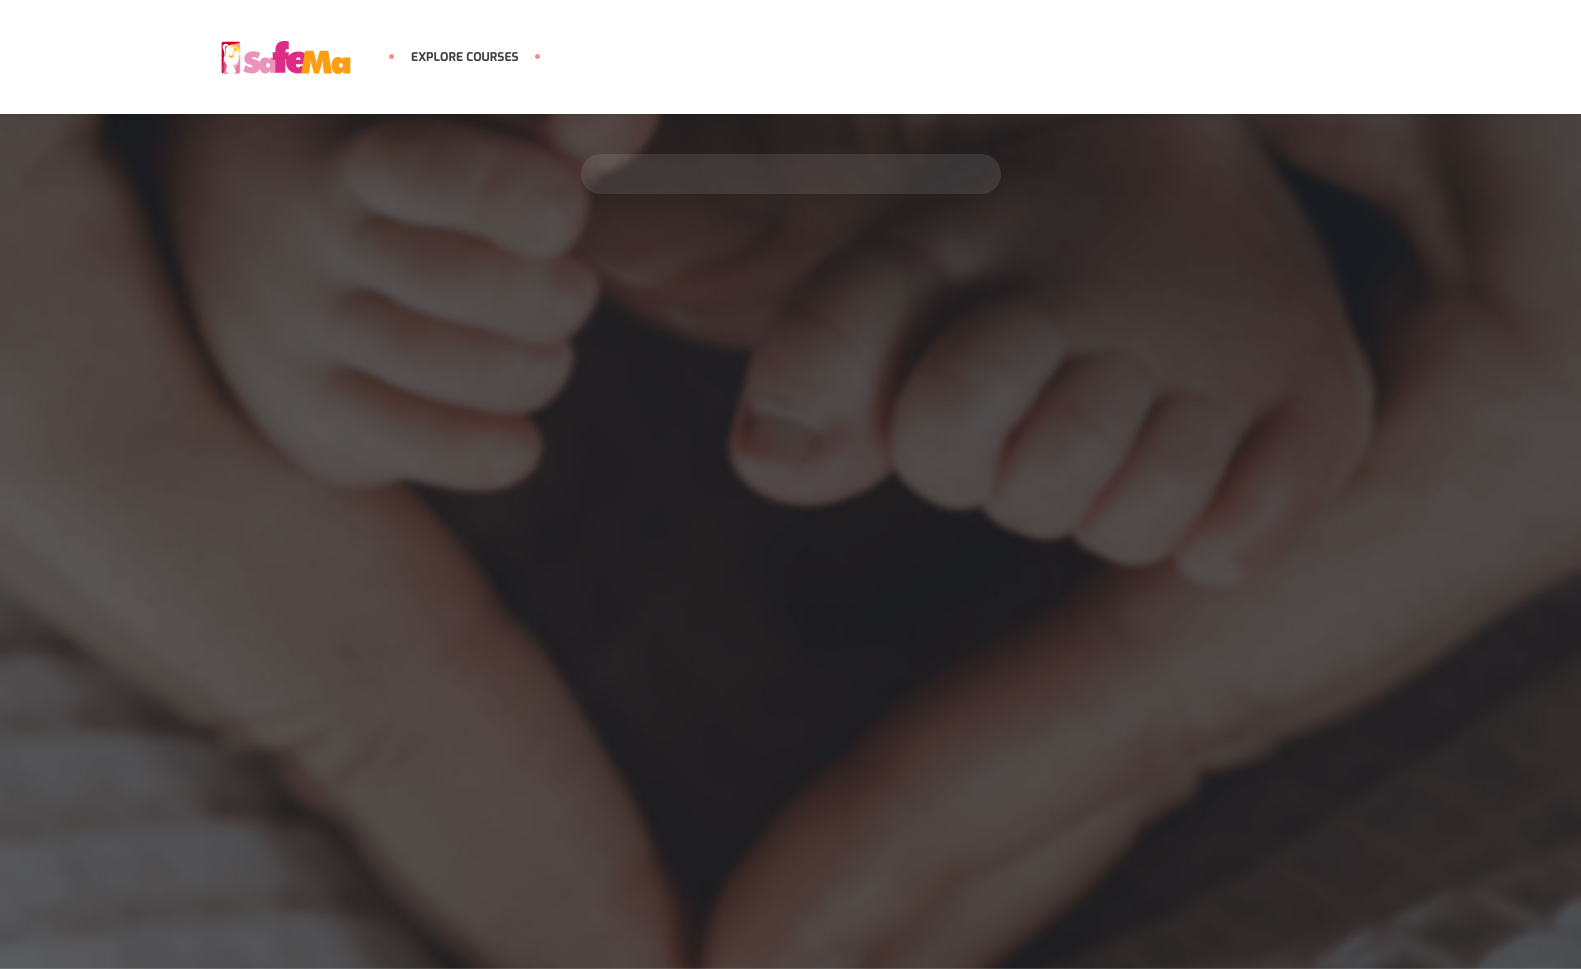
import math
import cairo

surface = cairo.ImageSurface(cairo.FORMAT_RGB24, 1581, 969)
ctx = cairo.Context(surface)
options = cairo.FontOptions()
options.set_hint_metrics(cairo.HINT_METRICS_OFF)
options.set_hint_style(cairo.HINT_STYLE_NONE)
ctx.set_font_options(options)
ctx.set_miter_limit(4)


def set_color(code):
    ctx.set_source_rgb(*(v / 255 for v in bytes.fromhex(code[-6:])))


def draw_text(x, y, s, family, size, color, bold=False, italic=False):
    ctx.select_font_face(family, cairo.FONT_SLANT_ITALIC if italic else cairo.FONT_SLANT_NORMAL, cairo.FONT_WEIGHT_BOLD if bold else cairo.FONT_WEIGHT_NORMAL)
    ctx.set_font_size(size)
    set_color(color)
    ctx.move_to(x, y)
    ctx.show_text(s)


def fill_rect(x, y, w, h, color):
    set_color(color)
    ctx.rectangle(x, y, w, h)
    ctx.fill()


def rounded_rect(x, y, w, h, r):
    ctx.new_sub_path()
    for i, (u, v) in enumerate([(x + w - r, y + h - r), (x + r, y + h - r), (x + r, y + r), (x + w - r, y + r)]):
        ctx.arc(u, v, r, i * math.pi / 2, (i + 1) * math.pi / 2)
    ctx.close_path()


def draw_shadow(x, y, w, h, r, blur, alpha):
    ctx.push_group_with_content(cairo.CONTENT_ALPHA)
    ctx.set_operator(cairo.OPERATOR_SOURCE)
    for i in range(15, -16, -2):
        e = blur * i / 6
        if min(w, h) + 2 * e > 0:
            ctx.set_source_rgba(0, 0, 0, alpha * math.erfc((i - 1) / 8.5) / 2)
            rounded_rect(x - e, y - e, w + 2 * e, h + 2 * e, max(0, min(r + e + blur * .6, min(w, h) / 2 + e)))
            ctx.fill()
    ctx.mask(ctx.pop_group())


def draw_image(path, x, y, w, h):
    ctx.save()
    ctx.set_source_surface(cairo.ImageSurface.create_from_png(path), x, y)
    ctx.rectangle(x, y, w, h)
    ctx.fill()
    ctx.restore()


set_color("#ffffff")
ctx.paint()
draw_image("assets/img2.png", 0, 114, 1581, 855)
set_color("#000000")
draw_shadow(0, 1, 1581, 114, 0, 2.5, 0.1)
fill_rect(0, 0, 1581, 114, "#ffffff")
draw_image("assets/img1.png", 221, 41, 130, 33)
set_color("#f78c8c")
ctx.arc(391.5, 56.5, 2.5, 0, 2 * math.pi)
ctx.fill()
draw_text(411, 61, "EXPLORE COURSES", "Exo", 12, "#404041", bold=True)
set_color("#f78c8c")
ctx.new_path()
ctx.arc(537.5, 56.5, 2.5, 0, 2 * math.pi)
ctx.fill()
ctx.set_source_rgba(1, 1, 1, 0.1)
rounded_rect(581, 154, 420, 40, 20)
ctx.fill()
surface.write_to_png("output.png")
